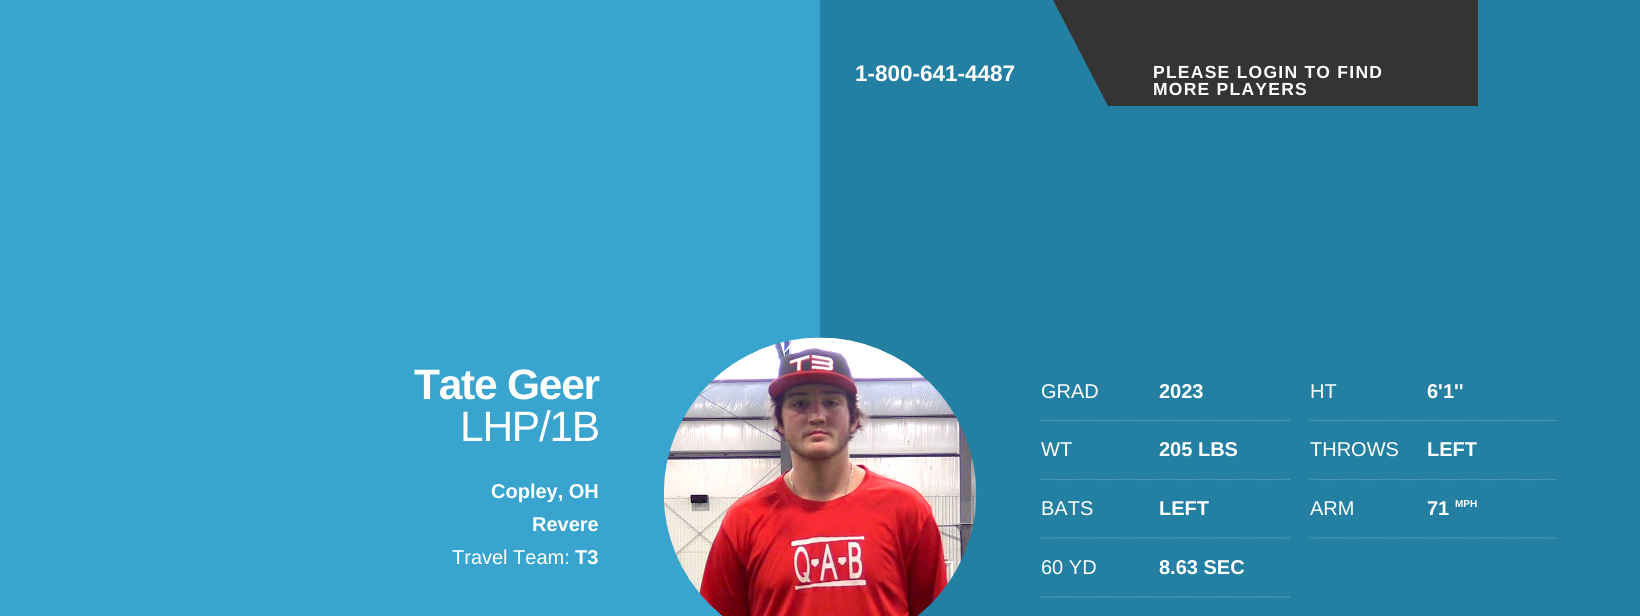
import math
import cairo

surface = cairo.ImageSurface(cairo.FORMAT_RGB24, 1640, 616)
ctx = cairo.Context(surface)
options = cairo.FontOptions()
options.set_hint_metrics(cairo.HINT_METRICS_OFF)
options.set_hint_style(cairo.HINT_STYLE_NONE)
ctx.set_font_options(options)
ctx.set_miter_limit(4)


def set_color(code):
    ctx.set_source_rgb(*(v / 255 for v in bytes.fromhex(code[-6:])))


def draw_text(x, y, s, family, size, color, bold=False, italic=False):
    ctx.select_font_face(family, cairo.FONT_SLANT_ITALIC if italic else cairo.FONT_SLANT_NORMAL, cairo.FONT_WEIGHT_BOLD if bold else cairo.FONT_WEIGHT_NORMAL)
    ctx.set_font_size(size)
    set_color(color)
    ctx.move_to(x, y)
    ctx.show_text(s)


def draw_spaced(x, y, s, letter, word):
    ctx.move_to(x, y)
    for ch in s:
        ctx.show_text(ch)
        ctx.rel_move_to(letter + word * (ch == ' '), 0)


def draw_image(path, x, y, w, h):
    ctx.save()
    ctx.set_source_surface(cairo.ImageSurface.create_from_png(path), x, y)
    ctx.rectangle(x, y, w, h)
    ctx.fill()
    ctx.restore()


set_color("#ffffff")
ctx.paint()
draw_image("assets/img1.png", 0, 0, 1640, 616)
draw_text(855, 81, "1-800-641-4487", "Liberation Sans", 22.5, "#ffffff", bold=True)
ctx.save()
ctx.rectangle(1053, 0, 425, 106)
ctx.clip()
set_color("#343434")
ctx.new_path()
ctx.move_to(1578, 0)
ctx.line_to(1578, 106)
ctx.line_to(1108, 106)
ctx.line_to(1053, 0)
ctx.close_path()
ctx.fill()
ctx.restore()
ctx.set_font_size(17.5)
draw_spaced(1153, 78, "PLEASE LOGIN TO FIND", 1.25, 0)
draw_spaced(1153, 95, "MORE PLAYERS", 1.25, 0)
ctx.set_font_size(42.5)
draw_spaced(414, 399, "Tate Geer", -1.25, 0)
ctx.select_font_face("Liberation Sans")
draw_spaced(460, 441, "LHP/1B", -1.25, 0)
draw_text(491, 498, "Copley, OH", "Liberation Sans", 20, "#ffffff", bold=True)
draw_text(532, 531, "Revere", "Liberation Sans", 20, "#ffffff", bold=True)
draw_text(452, 564, "Travel Team:", "Liberation Sans", 20, "#ffffff")
draw_text(575, 564, "T3", "Liberation Sans", 20, "#ffffff", bold=True)
draw_image("assets/img2.png", 663, 337, 314, 279)
ctx.new_path()
ctx.move_to(1041, 420.5)
ctx.line_to(1290, 420.5)
set_color("#66a6be")
ctx.set_line_width(1.2)
ctx.set_dash([1.25, 1.25])
ctx.stroke()
draw_text(1041, 398, "GRAD", "Liberation Sans", 20, "#ffffff")
draw_text(1159, 398, "2023", "Liberation Sans", 20, "#ffffff", bold=True)
ctx.new_path()
ctx.move_to(1310, 420.5)
ctx.line_to(1557.5, 420.5)
set_color("#66a6be")
ctx.stroke()
draw_text(1310, 398, "HT", "Liberation Sans", 20, "#ffffff")
draw_text(1427, 398, "6'1''", "Liberation Sans", 20, "#ffffff", bold=True)
ctx.new_path()
ctx.move_to(1041, 479.5)
ctx.line_to(1290, 479.5)
set_color("#66a6be")
ctx.stroke()
draw_text(1041, 456, "WT", "Liberation Sans", 20, "#ffffff")
draw_text(1159, 456, "205 LBS", "Liberation Sans", 20, "#ffffff", bold=True)
ctx.new_path()
ctx.move_to(1310, 479.5)
ctx.line_to(1557.5, 479.5)
set_color("#66a6be")
ctx.stroke()
draw_text(1310, 456, "THROWS", "Liberation Sans", 20, "#ffffff")
draw_text(1427, 456, "LEFT", "Liberation Sans", 20, "#ffffff", bold=True)
ctx.new_path()
ctx.move_to(1041, 538)
ctx.line_to(1290, 538)
set_color("#66a6be")
ctx.stroke()
draw_text(1041, 515, "BATS", "Liberation Sans", 20, "#ffffff")
draw_text(1159, 515, "LEFT", "Liberation Sans", 20, "#ffffff", bold=True)
ctx.new_path()
ctx.move_to(1310, 538)
ctx.line_to(1557.5, 538)
set_color("#66a6be")
ctx.stroke()
draw_text(1310, 515, "ARM", "Liberation Sans", 20, "#ffffff")
draw_text(1427, 515, "71", "Liberation Sans", 20, "#ffffff", bold=True)
draw_text(1455, 507, "MPH", "Liberation Sans", 10, "#ffffff", bold=True)
ctx.new_path()
ctx.move_to(1041, 597)
ctx.line_to(1290, 597)
set_color("#66a6be")
ctx.stroke()
draw_text(1041, 574, "60 YD", "Liberation Sans", 20, "#ffffff")
draw_text(1159, 574, "8.63 SEC", "Liberation Sans", 20, "#ffffff", bold=True)
surface.write_to_png("output.png")
